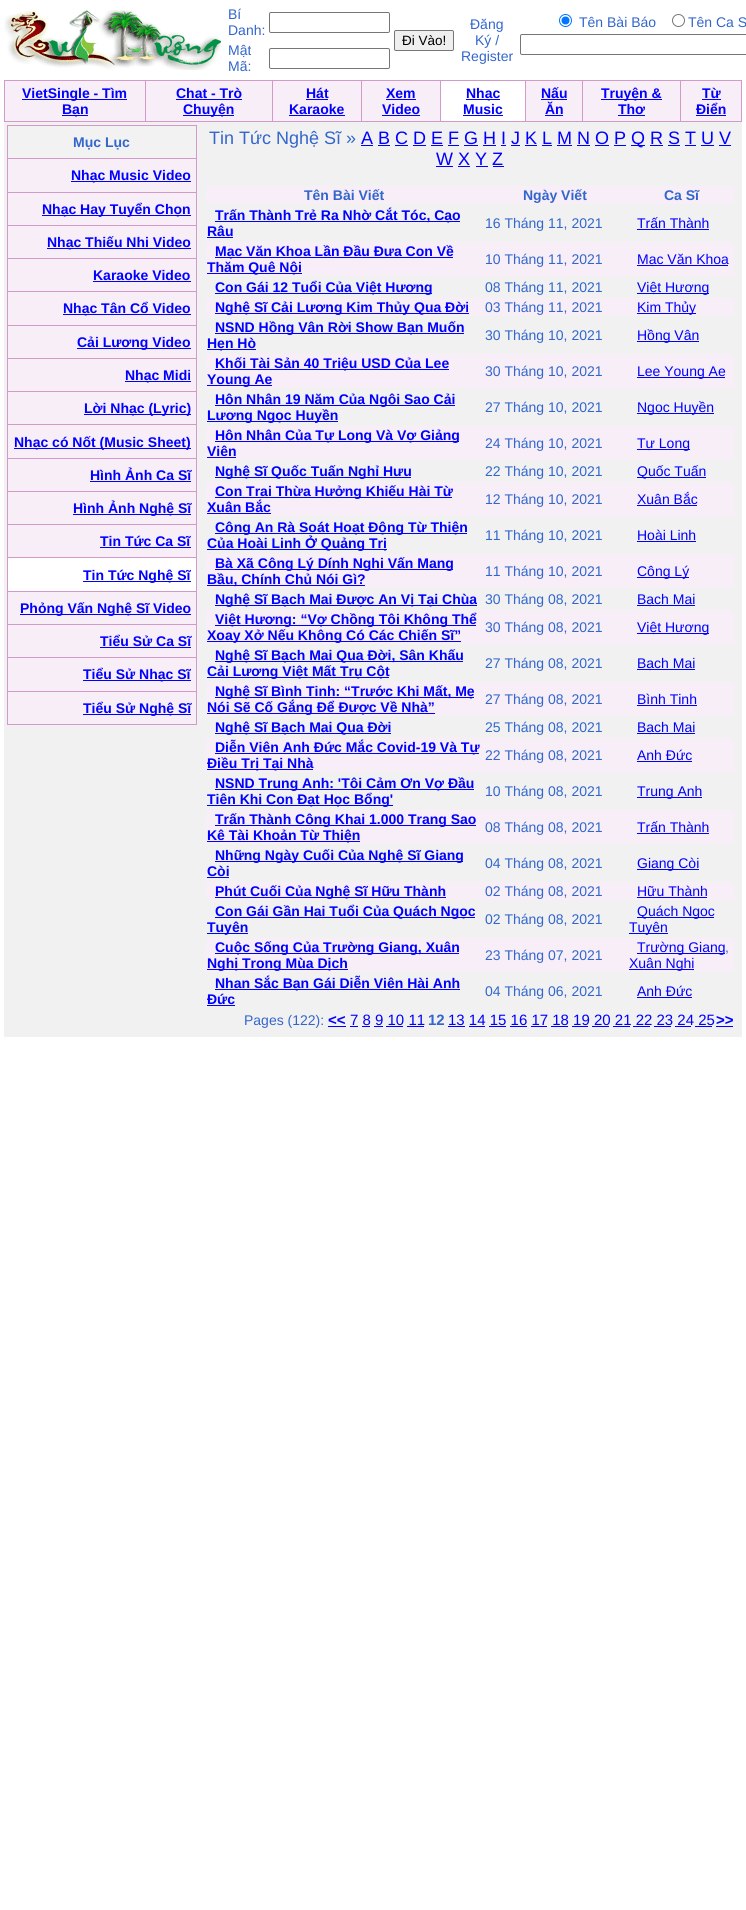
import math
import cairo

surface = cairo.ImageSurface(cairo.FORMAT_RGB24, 746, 1910)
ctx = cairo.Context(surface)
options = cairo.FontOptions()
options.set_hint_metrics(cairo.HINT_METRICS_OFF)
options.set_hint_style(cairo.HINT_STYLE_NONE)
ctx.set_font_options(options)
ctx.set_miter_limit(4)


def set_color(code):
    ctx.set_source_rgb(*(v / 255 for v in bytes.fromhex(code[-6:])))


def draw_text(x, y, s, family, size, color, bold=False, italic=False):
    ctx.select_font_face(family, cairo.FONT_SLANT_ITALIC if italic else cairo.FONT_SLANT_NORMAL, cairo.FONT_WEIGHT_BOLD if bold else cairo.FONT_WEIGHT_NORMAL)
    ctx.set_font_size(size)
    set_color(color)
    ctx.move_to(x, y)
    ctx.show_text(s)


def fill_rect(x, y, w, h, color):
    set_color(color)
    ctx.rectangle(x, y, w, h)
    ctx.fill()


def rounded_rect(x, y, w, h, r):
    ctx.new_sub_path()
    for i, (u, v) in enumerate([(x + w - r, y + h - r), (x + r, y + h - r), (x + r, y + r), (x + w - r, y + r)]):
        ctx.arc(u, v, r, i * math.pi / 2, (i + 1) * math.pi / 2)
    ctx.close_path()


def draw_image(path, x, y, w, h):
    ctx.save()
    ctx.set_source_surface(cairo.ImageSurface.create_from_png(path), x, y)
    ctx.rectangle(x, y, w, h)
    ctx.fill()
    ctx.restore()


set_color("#ffffff")
ctx.paint()
draw_image("assets/img1.png", 4, 10, 217, 60)
draw_text(228, 19, "Bí", "Liberation Sans", 14, "#3366cc")
draw_text(228, 35, "Danh:", "Liberation Sans", 14, "#3366cc")
rounded_rect(269.5, 12.5, 120, 20, 1.5)
set_color("#767676")
ctx.set_line_width(1)
ctx.stroke()
set_color("#efefef")
rounded_rect(394.5, 30.5, 59, 20, 1.5)
ctx.fill_preserve()
set_color("#767676")
ctx.stroke()
draw_text(402, 45, "Đi Vào!", "Liberation Sans", 13.5, "#000000")
draw_text(228, 55, "Mật", "Liberation Sans", 14, "#3366cc")
draw_text(228, 71, "Mã:", "Liberation Sans", 14, "#3366cc")
rounded_rect(269.5, 48.5, 120, 20, 1.5)
set_color("#767676")
ctx.stroke()
draw_text(470, 29, "Đăng", "Liberation Sans", 14, "#3366cc")
draw_text(475, 45, "Ký /", "Liberation Sans", 14, "#3366cc")
draw_text(461, 61, "Register", "Liberation Sans", 14, "#3366cc")
ctx.new_path()
ctx.arc(565.5, 20.5, 6, 0, 2 * math.pi)
set_color("#0075ff")
ctx.stroke()
ctx.arc(565.5, 20.5, 4, 0, 2 * math.pi)
ctx.fill()
draw_text(579, 27, "Tên Bài Báo", "Liberation Sans", 14, "#3366cc")
ctx.new_path()
ctx.arc(678.5, 20.5, 6, 0, 2 * math.pi)
set_color("#767676")
ctx.stroke()
draw_text(688, 27, "Tên Ca S", "Liberation Sans", 14, "#3366cc")
rounded_rect(520.5, 34.5, 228, 20, 1.5)
set_color("#767676")
ctx.stroke()
fill_rect(4, 80, 738, 42, "#d29ac8")
fill_rect(5, 81, 140, 40, "#f7eef7")
fill_rect(22, 99, 105, 1, "#0000ff")
draw_text(22, 98, "VietSingle - Tìm", "Liberation Sans", 14, "#0000ff", bold=True)
fill_rect(62, 115, 26, 1, "#0000ff")
draw_text(62, 114, "Bạn", "Liberation Sans", 14, "#0000ff", bold=True)
fill_rect(146, 81, 126, 40, "#f7eef7")
draw_text(176, 98, "Chat - Trò", "Liberation Sans", 14, "#0000ff", bold=True)
fill_rect(176, 99, 66, 1, "#0000ff")
fill_rect(183, 115, 51, 1, "#0000ff")
draw_text(183, 114, "Chuyện", "Liberation Sans", 14, "#0000ff", bold=True)
fill_rect(273, 81, 88, 40, "#f7eef7")
draw_text(306, 98, "Hát", "Liberation Sans", 14, "#0000ff", bold=True)
fill_rect(306, 99, 22, 1, "#0000ff")
draw_text(289, 114, "Karaoke", "Liberation Sans", 14, "#0000ff", bold=True)
fill_rect(289, 115, 56, 1, "#0000ff")
fill_rect(362, 81, 78, 40, "#f7eef7")
draw_text(386, 98, "Xem", "Liberation Sans", 14, "#0000ff", bold=True)
fill_rect(386, 99, 30, 1, "#0000ff")
draw_text(382, 114, "Video", "Liberation Sans", 14, "#0000ff", bold=True)
fill_rect(382, 115, 38, 1, "#0000ff")
fill_rect(441, 81, 84, 40, "#ffffff")
fill_rect(466, 99, 34, 1, "#0000ff")
draw_text(466, 98, "Nhạc", "Liberation Sans", 14, "#0000ff", bold=True)
draw_text(463, 114, "Music", "Liberation Sans", 14, "#0000ff", bold=True)
fill_rect(463, 115, 40, 1, "#0000ff")
fill_rect(526, 81, 56, 40, "#f7eef7")
draw_text(541, 98, "Nấu", "Liberation Sans", 14, "#0000ff", bold=True)
fill_rect(541, 99, 26, 1, "#0000ff")
draw_text(545, 114, "Ăn", "Liberation Sans", 14, "#0000ff", bold=True)
fill_rect(545, 115, 18, 1, "#0000ff")
fill_rect(583, 81, 97, 40, "#f7eef7")
fill_rect(601, 99, 61, 1, "#0000ff")
draw_text(601, 98, "Truyện &", "Liberation Sans", 14, "#0000ff", bold=True)
draw_text(618, 114, "Thơ", "Liberation Sans", 14, "#0000ff", bold=True)
fill_rect(618, 115, 27, 1, "#0000ff")
fill_rect(681, 81, 60, 40, "#f7eef7")
draw_text(702, 98, "Từ", "Liberation Sans", 14, "#0000ff", bold=True)
fill_rect(702, 99, 19, 1, "#0000ff")
draw_text(696, 114, "Điển", "Liberation Sans", 14, "#0000ff", bold=True)
fill_rect(696, 115, 30, 1, "#0000ff")
fill_rect(4, 122, 738, 915, "#f1f1f1")
fill_rect(7, 125, 190, 600, "#d29ac8")
fill_rect(8, 126, 188, 32, "#f2f2f2")
draw_text(73, 147, "Mục Lục", "Liberation Sans", 14, "#3366cc", bold=True)
fill_rect(8, 159, 188, 33, "#f7eef7")
fill_rect(71, 181, 120, 1, "#0000ff")
draw_text(71, 180, "Nhạc Music Video", "Liberation Sans", 14, "#0000ff", bold=True)
fill_rect(8, 193, 188, 32, "#f7eef7")
fill_rect(42, 215, 149, 1, "#0000ff")
draw_text(42, 214, "Nhạc Hay Tuyển Chọn", "Liberation Sans", 14, "#0000ff", bold=True)
fill_rect(8, 226, 188, 32, "#f7eef7")
fill_rect(47, 248, 144, 1, "#0000ff")
draw_text(47, 247, "Nhạc Thiếu Nhi Video", "Liberation Sans", 14, "#0000ff", bold=True)
fill_rect(8, 259, 188, 32, "#f7eef7")
draw_text(93, 280, "Karaoke Video", "Liberation Sans", 14, "#0000ff", bold=True)
fill_rect(93, 281, 98, 1, "#0000ff")
fill_rect(8, 292, 188, 33, "#f7eef7")
fill_rect(63, 314, 128, 1, "#0000ff")
draw_text(63, 313, "Nhạc Tân Cổ Video", "Liberation Sans", 14, "#0000ff", bold=True)
fill_rect(8, 326, 188, 32, "#f7eef7")
fill_rect(77, 348, 114, 1, "#0000ff")
draw_text(77, 347, "Cải Lương Video", "Liberation Sans", 14, "#0000ff", bold=True)
fill_rect(8, 359, 188, 32, "#f7eef7")
fill_rect(125, 381, 66, 1, "#0000ff")
draw_text(125, 380, "Nhạc Midi", "Liberation Sans", 14, "#0000ff", bold=True)
fill_rect(8, 392, 188, 32, "#f7eef7")
fill_rect(84, 414, 107, 1, "#0000ff")
draw_text(84, 413, "Lời Nhạc (Lyric)", "Liberation Sans", 14, "#0000ff", bold=True)
fill_rect(8, 425, 188, 33, "#f7eef7")
fill_rect(14, 448, 177, 1, "#0000ff")
draw_text(14, 447, "Nhạc có Nốt (Music Sheet)", "Liberation Sans", 14, "#0000ff", bold=True)
fill_rect(8, 459, 188, 32, "#f7eef7")
draw_text(90, 480, "Hình Ảnh Ca Sĩ", "Liberation Sans", 14, "#0000ff", bold=True)
fill_rect(90, 481, 101, 1, "#0000ff")
fill_rect(8, 492, 188, 32, "#f7eef7")
fill_rect(73, 514, 118, 1, "#0000ff")
draw_text(73, 513, "Hình Ảnh Nghệ Sĩ", "Liberation Sans", 14, "#0000ff", bold=True)
fill_rect(8, 525, 188, 32, "#f7eef7")
draw_text(100, 546, "Tin Tức Ca Sĩ", "Liberation Sans", 14, "#0000ff", bold=True)
fill_rect(100, 547, 91, 1, "#0000ff")
fill_rect(8, 558, 188, 33, "#ffffff")
fill_rect(83, 581, 108, 1, "#0000ff")
draw_text(83, 580, "Tin Tức Nghệ Sĩ", "Liberation Sans", 14, "#0000ff", bold=True)
fill_rect(8, 592, 188, 32, "#f7eef7")
fill_rect(20, 614, 171, 1, "#0000ff")
draw_text(20, 613, "Phỏng Vấn Nghệ Sĩ Video", "Liberation Sans", 14, "#0000ff", bold=True)
fill_rect(8, 625, 188, 32, "#f7eef7")
draw_text(100, 646, "Tiểu Sử Ca Sĩ", "Liberation Sans", 14, "#0000ff", bold=True)
fill_rect(100, 647, 91, 1, "#0000ff")
fill_rect(8, 658, 188, 33, "#f7eef7")
fill_rect(83, 680, 108, 1, "#0000ff")
draw_text(83, 679, "Tiểu Sử Nhạc Sĩ", "Liberation Sans", 14, "#0000ff", bold=True)
fill_rect(8, 692, 188, 32, "#f7eef7")
fill_rect(83, 714, 108, 1, "#0000ff")
draw_text(83, 713, "Tiểu Sử Nghệ Sĩ", "Liberation Sans", 14, "#0000ff", bold=True)
draw_text(209, 144, "Tin Tức Nghệ Sĩ »", "Liberation Sans", 18, "#3366cc")
draw_text(361, 144, "A B C D E F G H I J K L M N O P", "Liberation Sans", 18, "#0000ff")
fill_rect(361, 145, 12, 1, "#0000ff")
fill_rect(631, 145, 14, 1, "#0000ff")
draw_text(631, 144, "Q R S T U V", "Liberation Sans", 18, "#0000ff")
fill_rect(378, 145, 12, 1, "#0000ff")
fill_rect(395, 145, 13, 1, "#0000ff")
fill_rect(413, 145, 13, 1, "#0000ff")
fill_rect(431, 145, 12, 1, "#0000ff")
fill_rect(448, 145, 11, 1, "#0000ff")
fill_rect(464, 145, 14, 1, "#0000ff")
fill_rect(483, 145, 13, 1, "#0000ff")
fill_rect(501, 145, 5, 1, "#0000ff")
fill_rect(511, 145, 9, 1, "#0000ff")
fill_rect(525, 145, 12, 1, "#0000ff")
fill_rect(542, 145, 10, 1, "#0000ff")
fill_rect(557, 145, 15, 1, "#0000ff")
fill_rect(577, 145, 13, 1, "#0000ff")
fill_rect(595, 145, 14, 1, "#0000ff")
fill_rect(614, 145, 12, 1, "#0000ff")
fill_rect(650, 145, 13, 1, "#0000ff")
fill_rect(668, 145, 12, 1, "#0000ff")
fill_rect(685, 145, 11, 1, "#0000ff")
fill_rect(701, 145, 13, 1, "#0000ff")
fill_rect(719, 145, 12, 1, "#0000ff")
draw_text(436, 165, "W X Y Z", "Liberation Sans", 18, "#0000ff")
fill_rect(436, 166, 17, 1, "#0000ff")
fill_rect(458, 166, 12, 1, "#0000ff")
fill_rect(476, 166, 12, 1, "#0000ff")
fill_rect(493, 166, 11, 1, "#0000ff")
fill_rect(206, 186, 528, 18, "#f7eef7")
draw_text(304, 200, "Tên Bài Viết", "Liberation Sans", 14, "#3366cc", bold=True)
draw_text(523, 200, "Ngày Viết", "Liberation Sans", 14, "#3366cc", bold=True)
draw_text(664, 200, "Ca Sĩ", "Liberation Sans", 14, "#3366cc", bold=True)
fill_rect(215, 221, 245, 1, "#0000ff")
draw_text(215, 220, "Trấn Thành Trẻ Ra Nhờ Cắt Tóc, Cạo", "Liberation Sans", 14, "#0000ff", bold=True)
draw_text(207, 236, "Râu", "Liberation Sans", 14, "#0000ff", bold=True)
fill_rect(207, 237, 26, 1, "#0000ff")
draw_text(485, 228, "16 Tháng 11, 2021", "Liberation Sans", 14, "#3366cc")
draw_text(637, 228, "Trấn Thành", "Liberation Sans", 14, "#0000ff")
fill_rect(637, 229, 72, 1, "#0000ff")
fill_rect(206, 242, 528, 34, "#f7eef7")
fill_rect(215, 257, 238, 1, "#0000ff")
draw_text(215, 256, "Mạc Văn Khoa Lần Đầu Đưa Con Về", "Liberation Sans", 14, "#0000ff", bold=True)
fill_rect(207, 273, 95, 1, "#0000ff")
draw_text(207, 272, "Thăm Quê Nội", "Liberation Sans", 14, "#0000ff", bold=True)
draw_text(485, 264, "10 Tháng 11, 2021", "Liberation Sans", 14, "#3366cc")
fill_rect(637, 265, 91, 1, "#0000ff")
draw_text(637, 264, "Mạc Văn Khoa", "Liberation Sans", 14, "#0000ff")
fill_rect(215, 293, 217, 1, "#0000ff")
draw_text(215, 292, "Con Gái 12 Tuổi Của Việt Hương", "Liberation Sans", 14, "#0000ff", bold=True)
draw_text(485, 292, "08 Tháng 11, 2021", "Liberation Sans", 14, "#3366cc")
fill_rect(637, 293, 72, 1, "#0000ff")
draw_text(637, 292, "Việt Hương", "Liberation Sans", 14, "#0000ff")
fill_rect(206, 298, 528, 18, "#f7eef7")
fill_rect(215, 313, 254, 1, "#0000ff")
draw_text(215, 312, "Nghệ Sĩ Cải Lương Kim Thủy Qua Đời", "Liberation Sans", 14, "#0000ff", bold=True)
draw_text(485, 312, "03 Tháng 11, 2021", "Liberation Sans", 14, "#3366cc")
fill_rect(637, 313, 59, 1, "#0000ff")
draw_text(637, 312, "Kim Thủy", "Liberation Sans", 14, "#0000ff")
fill_rect(215, 333, 249, 1, "#0000ff")
draw_text(215, 332, "NSND Hồng Vân Rời Show Bạn Muốn", "Liberation Sans", 14, "#0000ff", bold=True)
fill_rect(207, 349, 49, 1, "#0000ff")
draw_text(207, 348, "Hẹn Hò", "Liberation Sans", 14, "#0000ff", bold=True)
draw_text(485, 340, "30 Tháng 10, 2021", "Liberation Sans", 14, "#3366cc")
fill_rect(637, 341, 62, 1, "#0000ff")
draw_text(637, 340, "Hồng Vân", "Liberation Sans", 14, "#0000ff")
fill_rect(206, 354, 528, 34, "#f7eef7")
fill_rect(215, 369, 234, 1, "#0000ff")
draw_text(215, 368, "Khối Tài Sản 40 Triệu USD Của Lee", "Liberation Sans", 14, "#0000ff", bold=True)
fill_rect(207, 385, 65, 1, "#0000ff")
draw_text(207, 384, "Young Ae", "Liberation Sans", 14, "#0000ff", bold=True)
draw_text(485, 376, "30 Tháng 10, 2021", "Liberation Sans", 14, "#3366cc")
fill_rect(637, 377, 88, 1, "#0000ff")
draw_text(637, 376, "Lee Young Ae", "Liberation Sans", 14, "#0000ff")
fill_rect(215, 405, 240, 1, "#0000ff")
draw_text(215, 404, "Hôn Nhân 19 Năm Của Ngôi Sao Cải", "Liberation Sans", 14, "#0000ff", bold=True)
fill_rect(207, 421, 131, 1, "#0000ff")
draw_text(207, 420, "Lương Ngọc Huyền", "Liberation Sans", 14, "#0000ff", bold=True)
draw_text(485, 412, "27 Tháng 10, 2021", "Liberation Sans", 14, "#3366cc")
fill_rect(637, 413, 77, 1, "#0000ff")
draw_text(637, 412, "Ngọc Huyền", "Liberation Sans", 14, "#0000ff")
fill_rect(206, 426, 528, 34, "#f7eef7")
fill_rect(215, 441, 244, 1, "#0000ff")
draw_text(215, 440, "Hôn Nhân Của Tự Long Và Vợ Giảng", "Liberation Sans", 14, "#0000ff", bold=True)
draw_text(207, 456, "Viên", "Liberation Sans", 14, "#0000ff", bold=True)
fill_rect(207, 457, 29, 1, "#0000ff")
draw_text(485, 448, "24 Tháng 10, 2021", "Liberation Sans", 14, "#3366cc")
fill_rect(637, 449, 53, 1, "#0000ff")
draw_text(637, 448, "Tự Long", "Liberation Sans", 14, "#0000ff")
fill_rect(215, 477, 196, 1, "#0000ff")
draw_text(215, 476, "Nghệ Sĩ Quốc Tuấn Nghỉ Hưu", "Liberation Sans", 14, "#0000ff", bold=True)
draw_text(485, 476, "22 Tháng 10, 2021", "Liberation Sans", 14, "#3366cc")
fill_rect(637, 477, 69, 1, "#0000ff")
draw_text(637, 476, "Quốc Tuấn", "Liberation Sans", 14, "#0000ff")
fill_rect(206, 482, 528, 34, "#f7eef7")
fill_rect(215, 497, 237, 1, "#0000ff")
draw_text(215, 496, "Con Trai Thừa Hưởng Khiếu Hài Từ", "Liberation Sans", 14, "#0000ff", bold=True)
draw_text(207, 512, "Xuân Bắc", "Liberation Sans", 14, "#0000ff", bold=True)
fill_rect(207, 513, 64, 1, "#0000ff")
draw_text(485, 504, "12 Tháng 10, 2021", "Liberation Sans", 14, "#3366cc")
draw_text(637, 504, "Xuân Bắc", "Liberation Sans", 14, "#0000ff")
fill_rect(637, 505, 60, 1, "#0000ff")
fill_rect(215, 533, 252, 1, "#0000ff")
draw_text(215, 532, "Công An Rà Soát Hoạt Động Từ Thiện", "Liberation Sans", 14, "#0000ff", bold=True)
fill_rect(207, 549, 180, 1, "#0000ff")
draw_text(207, 548, "Của Hoài Linh Ở Quảng Trị", "Liberation Sans", 14, "#0000ff", bold=True)
draw_text(485, 540, "11 Tháng 10, 2021", "Liberation Sans", 14, "#3366cc")
draw_text(637, 540, "Hoài Linh", "Liberation Sans", 14, "#0000ff")
fill_rect(637, 541, 59, 1, "#0000ff")
fill_rect(206, 554, 528, 34, "#f7eef7")
fill_rect(215, 569, 238, 1, "#0000ff")
draw_text(215, 568, "Bà Xã Công Lý Dính Nghi Vấn Mang", "Liberation Sans", 14, "#0000ff", bold=True)
fill_rect(207, 585, 158, 1, "#0000ff")
draw_text(207, 584, "Bầu, Chính Chủ Nói Gì?", "Liberation Sans", 14, "#0000ff", bold=True)
draw_text(485, 576, "11 Tháng 10, 2021", "Liberation Sans", 14, "#3366cc")
fill_rect(637, 577, 52, 1, "#0000ff")
draw_text(637, 576, "Công Lý", "Liberation Sans", 14, "#0000ff")
fill_rect(215, 605, 262, 1, "#0000ff")
draw_text(215, 604, "Nghệ Sĩ Bạch Mai Được An Vị Tại Chùa", "Liberation Sans", 14, "#0000ff", bold=True)
draw_text(485, 604, "30 Tháng 08, 2021", "Liberation Sans", 14, "#3366cc")
fill_rect(637, 605, 58, 1, "#0000ff")
draw_text(637, 604, "Bạch Mai", "Liberation Sans", 14, "#0000ff")
fill_rect(206, 610, 528, 34, "#f7eef7")
fill_rect(215, 625, 261, 1, "#0000ff")
draw_text(215, 624, "Việt Hương: “Vợ Chồng Tôi Không Thể", "Liberation Sans", 14, "#0000ff", bold=True)
fill_rect(207, 641, 254, 1, "#0000ff")
draw_text(207, 640, "Xoay Xở Nếu Không Có Các Chiến Sĩ”", "Liberation Sans", 14, "#0000ff", bold=True)
draw_text(485, 632, "30 Tháng 08, 2021", "Liberation Sans", 14, "#3366cc")
fill_rect(637, 633, 72, 1, "#0000ff")
draw_text(637, 632, "Việt Hương", "Liberation Sans", 14, "#0000ff")
fill_rect(215, 661, 248, 1, "#0000ff")
draw_text(215, 660, "Nghệ Sĩ Bạch Mai Qua Đời, Sân Khấu", "Liberation Sans", 14, "#0000ff", bold=True)
fill_rect(207, 677, 182, 1, "#0000ff")
draw_text(207, 676, "Cải Lương Việt Mất Trụ Cột", "Liberation Sans", 14, "#0000ff", bold=True)
draw_text(485, 668, "27 Tháng 08, 2021", "Liberation Sans", 14, "#3366cc")
fill_rect(637, 669, 58, 1, "#0000ff")
draw_text(637, 668, "Bạch Mai", "Liberation Sans", 14, "#0000ff")
fill_rect(206, 682, 528, 34, "#f7eef7")
fill_rect(215, 697, 259, 1, "#0000ff")
draw_text(215, 696, "Nghệ Sĩ Bình Tinh: “Trước Khi Mất, Mẹ", "Liberation Sans", 14, "#0000ff", bold=True)
fill_rect(207, 713, 228, 1, "#0000ff")
draw_text(207, 712, "Nói Sẽ Cố Gắng Để Được Về Nhà”", "Liberation Sans", 14, "#0000ff", bold=True)
draw_text(485, 704, "27 Tháng 08, 2021", "Liberation Sans", 14, "#3366cc")
draw_text(637, 704, "Bình Tinh", "Liberation Sans", 14, "#0000ff")
fill_rect(637, 705, 60, 1, "#0000ff")
fill_rect(215, 733, 176, 1, "#0000ff")
draw_text(215, 732, "Nghệ Sĩ Bạch Mai Qua Đời", "Liberation Sans", 14, "#0000ff", bold=True)
draw_text(485, 732, "25 Tháng 08, 2021", "Liberation Sans", 14, "#3366cc")
fill_rect(637, 733, 58, 1, "#0000ff")
draw_text(637, 732, "Bạch Mai", "Liberation Sans", 14, "#0000ff")
fill_rect(206, 738, 528, 34, "#f7eef7")
fill_rect(215, 753, 264, 1, "#0000ff")
draw_text(215, 752, "Diễn Viên Anh Đức Mắc Covid-19 Và Tự", "Liberation Sans", 14, "#0000ff", bold=True)
fill_rect(207, 769, 106, 1, "#0000ff")
draw_text(207, 768, "Điều Trị Tại Nhà", "Liberation Sans", 14, "#0000ff", bold=True)
draw_text(485, 760, "22 Tháng 08, 2021", "Liberation Sans", 14, "#3366cc")
draw_text(637, 760, "Anh Đức", "Liberation Sans", 14, "#0000ff")
fill_rect(637, 761, 55, 1, "#0000ff")
fill_rect(215, 789, 259, 1, "#0000ff")
draw_text(215, 788, "NSND Trung Anh: 'Tôi Cảm Ơn Vợ Đầu", "Liberation Sans", 14, "#0000ff", bold=True)
fill_rect(207, 805, 186, 1, "#0000ff")
draw_text(207, 804, "Tiên Khi Con Đạt Học Bổng'", "Liberation Sans", 14, "#0000ff", bold=True)
draw_text(485, 796, "10 Tháng 08, 2021", "Liberation Sans", 14, "#3366cc")
fill_rect(637, 797, 65, 1, "#0000ff")
draw_text(637, 796, "Trung Anh", "Liberation Sans", 14, "#0000ff")
fill_rect(206, 810, 528, 34, "#f7eef7")
fill_rect(215, 825, 261, 1, "#0000ff")
draw_text(215, 824, "Trấn Thành Công Khai 1.000 Trang Sao", "Liberation Sans", 14, "#0000ff", bold=True)
fill_rect(207, 841, 153, 1, "#0000ff")
draw_text(207, 840, "Kê Tài Khoản Từ Thiện", "Liberation Sans", 14, "#0000ff", bold=True)
draw_text(485, 832, "08 Tháng 08, 2021", "Liberation Sans", 14, "#3366cc")
draw_text(637, 832, "Trấn Thành", "Liberation Sans", 14, "#0000ff")
fill_rect(637, 833, 72, 1, "#0000ff")
fill_rect(215, 861, 248, 1, "#0000ff")
draw_text(215, 860, "Những Ngày Cuối Của Nghệ Sĩ Giang", "Liberation Sans", 14, "#0000ff", bold=True)
draw_text(207, 876, "Còi", "Liberation Sans", 14, "#0000ff", bold=True)
fill_rect(207, 877, 22, 1, "#0000ff")
draw_text(485, 868, "04 Tháng 08, 2021", "Liberation Sans", 14, "#3366cc")
fill_rect(637, 869, 62, 1, "#0000ff")
draw_text(637, 868, "Giang Còi", "Liberation Sans", 14, "#0000ff")
fill_rect(206, 882, 528, 18, "#f7eef7")
fill_rect(215, 897, 231, 1, "#0000ff")
draw_text(215, 896, "Phút Cuối Của Nghệ Sĩ Hữu Thành", "Liberation Sans", 14, "#0000ff", bold=True)
draw_text(485, 896, "02 Tháng 08, 2021", "Liberation Sans", 14, "#3366cc")
draw_text(637, 896, "Hữu Thành", "Liberation Sans", 14, "#0000ff")
fill_rect(637, 897, 70, 1, "#0000ff")
fill_rect(215, 917, 260, 1, "#0000ff")
draw_text(215, 916, "Con Gái Gần Hai Tuổi Của Quách Ngọc", "Liberation Sans", 14, "#0000ff", bold=True)
fill_rect(207, 933, 41, 1, "#0000ff")
draw_text(207, 932, "Tuyên", "Liberation Sans", 14, "#0000ff", bold=True)
draw_text(485, 924, "02 Tháng 08, 2021", "Liberation Sans", 14, "#3366cc")
fill_rect(637, 917, 77, 1, "#0000ff")
draw_text(637, 916, "Quách Ngọc", "Liberation Sans", 14, "#0000ff")
fill_rect(629, 933, 39, 1, "#0000ff")
draw_text(629, 932, "Tuyên", "Liberation Sans", 14, "#0000ff")
fill_rect(206, 938, 528, 34, "#f7eef7")
fill_rect(215, 953, 244, 1, "#0000ff")
draw_text(215, 952, "Cuộc Sống Của Trường Giang, Xuân", "Liberation Sans", 14, "#0000ff", bold=True)
fill_rect(207, 969, 141, 1, "#0000ff")
draw_text(207, 968, "Nghị Trong Mùa Dịch", "Liberation Sans", 14, "#0000ff", bold=True)
draw_text(485, 960, "23 Tháng 07, 2021", "Liberation Sans", 14, "#3366cc")
fill_rect(637, 953, 88, 1, "#0000ff")
draw_text(637, 952, "Trường Giang", "Liberation Sans", 14, "#0000ff")
draw_text(725, 952, ",", "Liberation Sans", 14, "#3366cc")
fill_rect(629, 969, 65, 1, "#0000ff")
draw_text(629, 968, "Xuân Nghị", "Liberation Sans", 14, "#0000ff")
fill_rect(215, 989, 245, 1, "#0000ff")
draw_text(215, 988, "Nhan Sắc Bạn Gái Diễn Viên Hài Anh", "Liberation Sans", 14, "#0000ff", bold=True)
draw_text(207, 1004, "Đức", "Liberation Sans", 14, "#0000ff", bold=True)
fill_rect(207, 1005, 28, 1, "#0000ff")
draw_text(485, 996, "04 Tháng 06, 2021", "Liberation Sans", 14, "#3366cc")
draw_text(637, 996, "Anh Đức", "Liberation Sans", 14, "#0000ff")
fill_rect(637, 997, 55, 1, "#0000ff")
draw_text(244, 1025, "Pages (122):", "Liberation Sans", 14, "#3366cc")
draw_text(328, 1025, "<<", "Liberation Sans", 15, "#0000ff", bold=True)
fill_rect(328, 1026, 18, 1, "#0000ff")
draw_text(350, 1025, "7 8 9 10 11", "Liberation Sans", 15, "#0000ff")
fill_rect(350, 1026, 8, 1, "#0000ff")
draw_text(428, 1025, "12", "Liberation Sans", 15, "#3366cc", bold=True)
draw_text(448, 1025, "13 14 15 16 17 18 19 20 21 22 23 24 25", "Liberation Sans", 15, "#0000ff")
fill_rect(448, 1026, 17, 1, "#0000ff")
draw_text(716, 1025, ">>", "Liberation Sans", 15, "#0000ff", bold=True)
fill_rect(716, 1026, 17, 1, "#0000ff")
fill_rect(362, 1026, 8, 1, "#0000ff")
fill_rect(374, 1026, 9, 1, "#0000ff")
fill_rect(386, 1026, 17, 1, "#0000ff")
fill_rect(407, 1026, 17, 1, "#0000ff")
fill_rect(469, 1026, 16, 1, "#0000ff")
fill_rect(489, 1026, 17, 1, "#0000ff")
fill_rect(510, 1026, 17, 1, "#0000ff")
fill_rect(531, 1026, 16, 1, "#0000ff")
fill_rect(551, 1026, 17, 1, "#0000ff")
fill_rect(572, 1026, 16, 1, "#0000ff")
fill_rect(592, 1026, 17, 1, "#0000ff")
fill_rect(613, 1026, 17, 1, "#0000ff")
fill_rect(633, 1026, 17, 1, "#0000ff")
fill_rect(654, 1026, 17, 1, "#0000ff")
fill_rect(675, 1026, 16, 1, "#0000ff")
fill_rect(695, 1026, 17, 1, "#0000ff")
surface.write_to_png("output.png")
